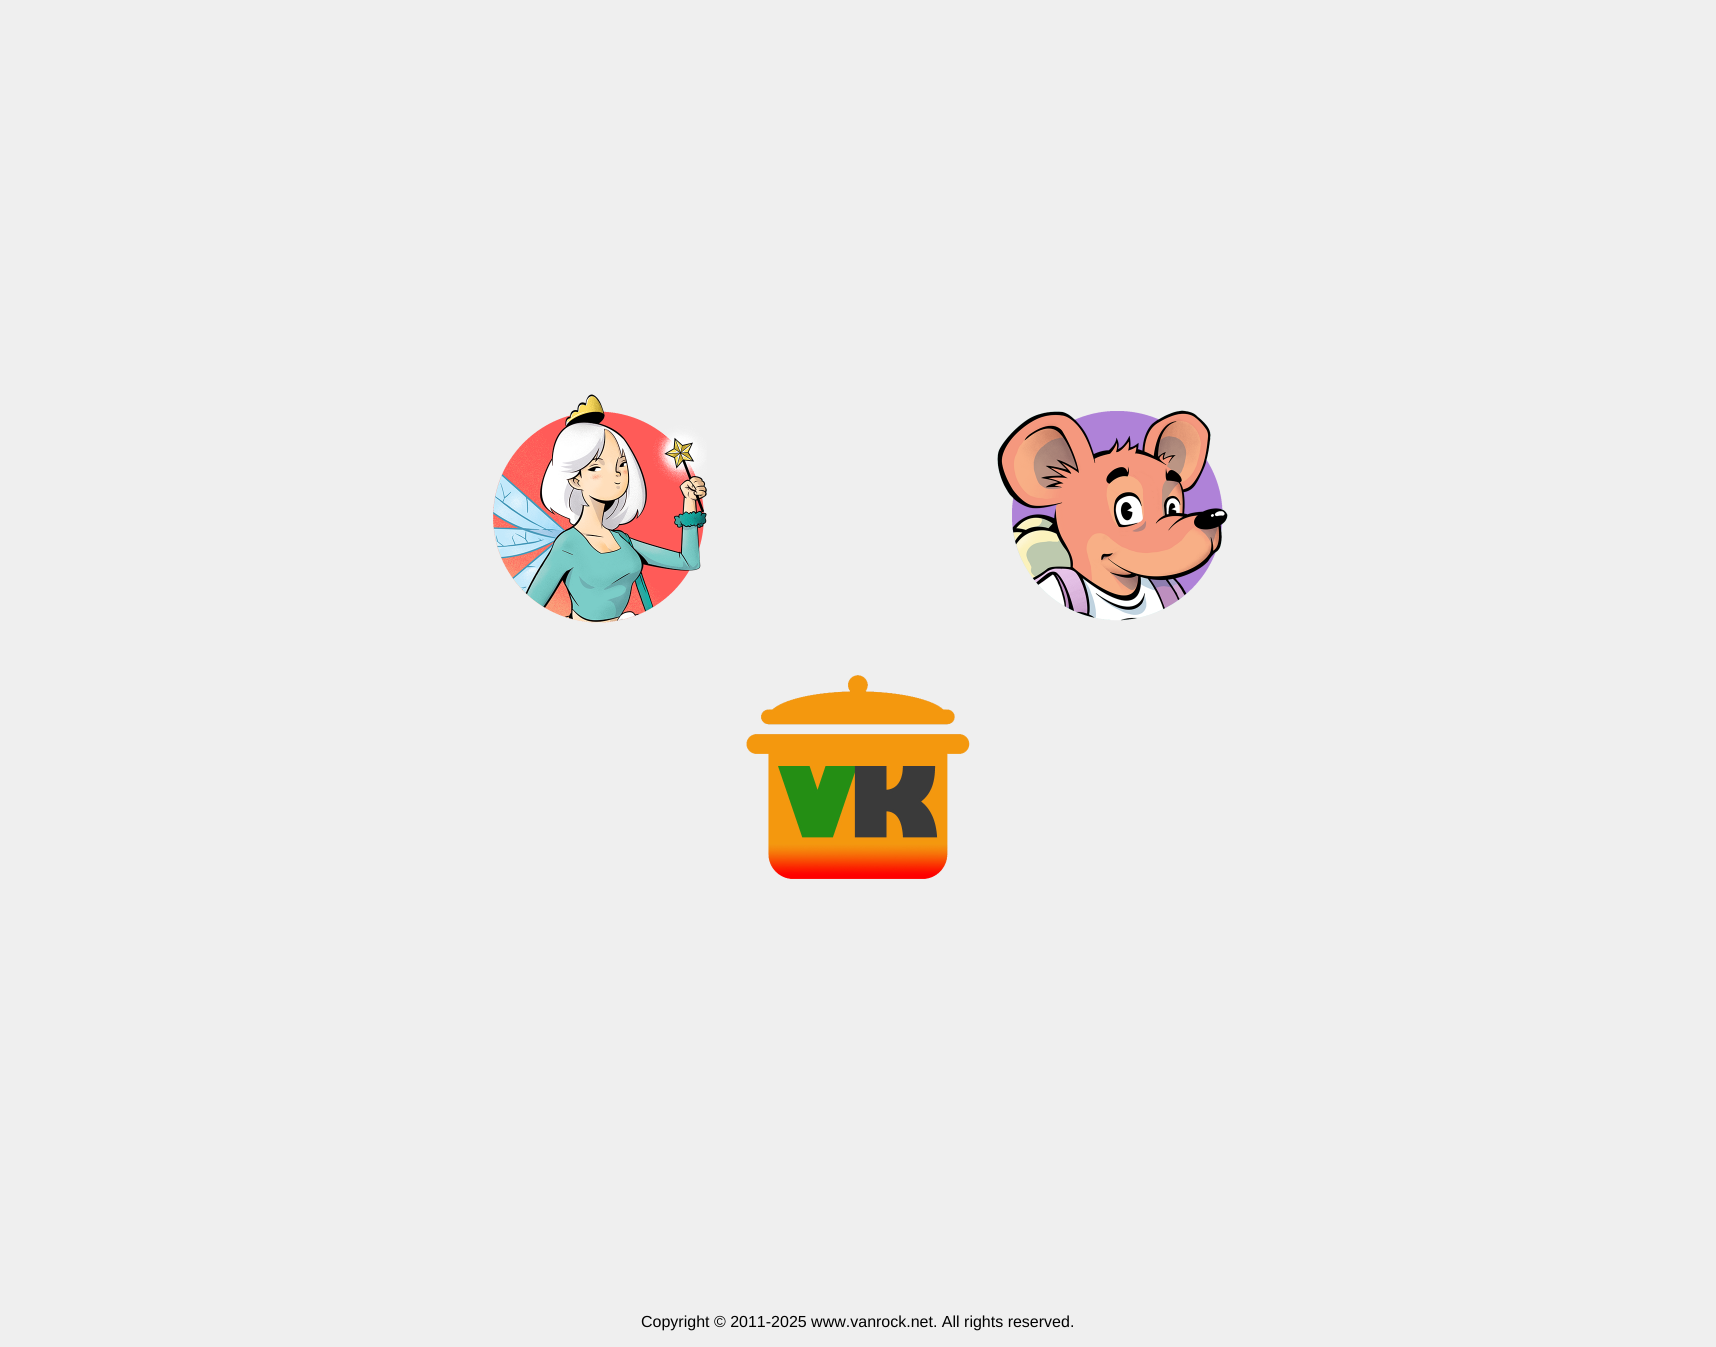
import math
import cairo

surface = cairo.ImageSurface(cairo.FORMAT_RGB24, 1716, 1347)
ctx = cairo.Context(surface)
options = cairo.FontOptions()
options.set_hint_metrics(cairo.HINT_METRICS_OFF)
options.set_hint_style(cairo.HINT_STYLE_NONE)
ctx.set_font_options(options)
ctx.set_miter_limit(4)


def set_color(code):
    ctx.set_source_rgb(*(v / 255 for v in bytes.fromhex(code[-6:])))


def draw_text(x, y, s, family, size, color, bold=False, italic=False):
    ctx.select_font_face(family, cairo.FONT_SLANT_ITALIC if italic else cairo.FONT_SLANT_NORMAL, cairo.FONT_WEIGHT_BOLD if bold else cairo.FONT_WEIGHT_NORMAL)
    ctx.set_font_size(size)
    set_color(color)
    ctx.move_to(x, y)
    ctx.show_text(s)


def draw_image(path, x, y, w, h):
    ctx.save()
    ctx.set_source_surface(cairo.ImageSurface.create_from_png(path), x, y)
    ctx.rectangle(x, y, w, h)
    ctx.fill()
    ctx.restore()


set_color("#efefef")
ctx.paint()
draw_image("assets/img1.png", 493, 394, 214, 229)
draw_image("assets/img2.png", 997, 410, 231, 211)
draw_image("assets/img3.png", 746, 675, 224, 204)
draw_text(641, 1327, "Copyright © 2011-2025 www.vanrock.net. All rights reserved.", "Liberation Sans", 16, "#000000")
surface.write_to_png("output.png")
